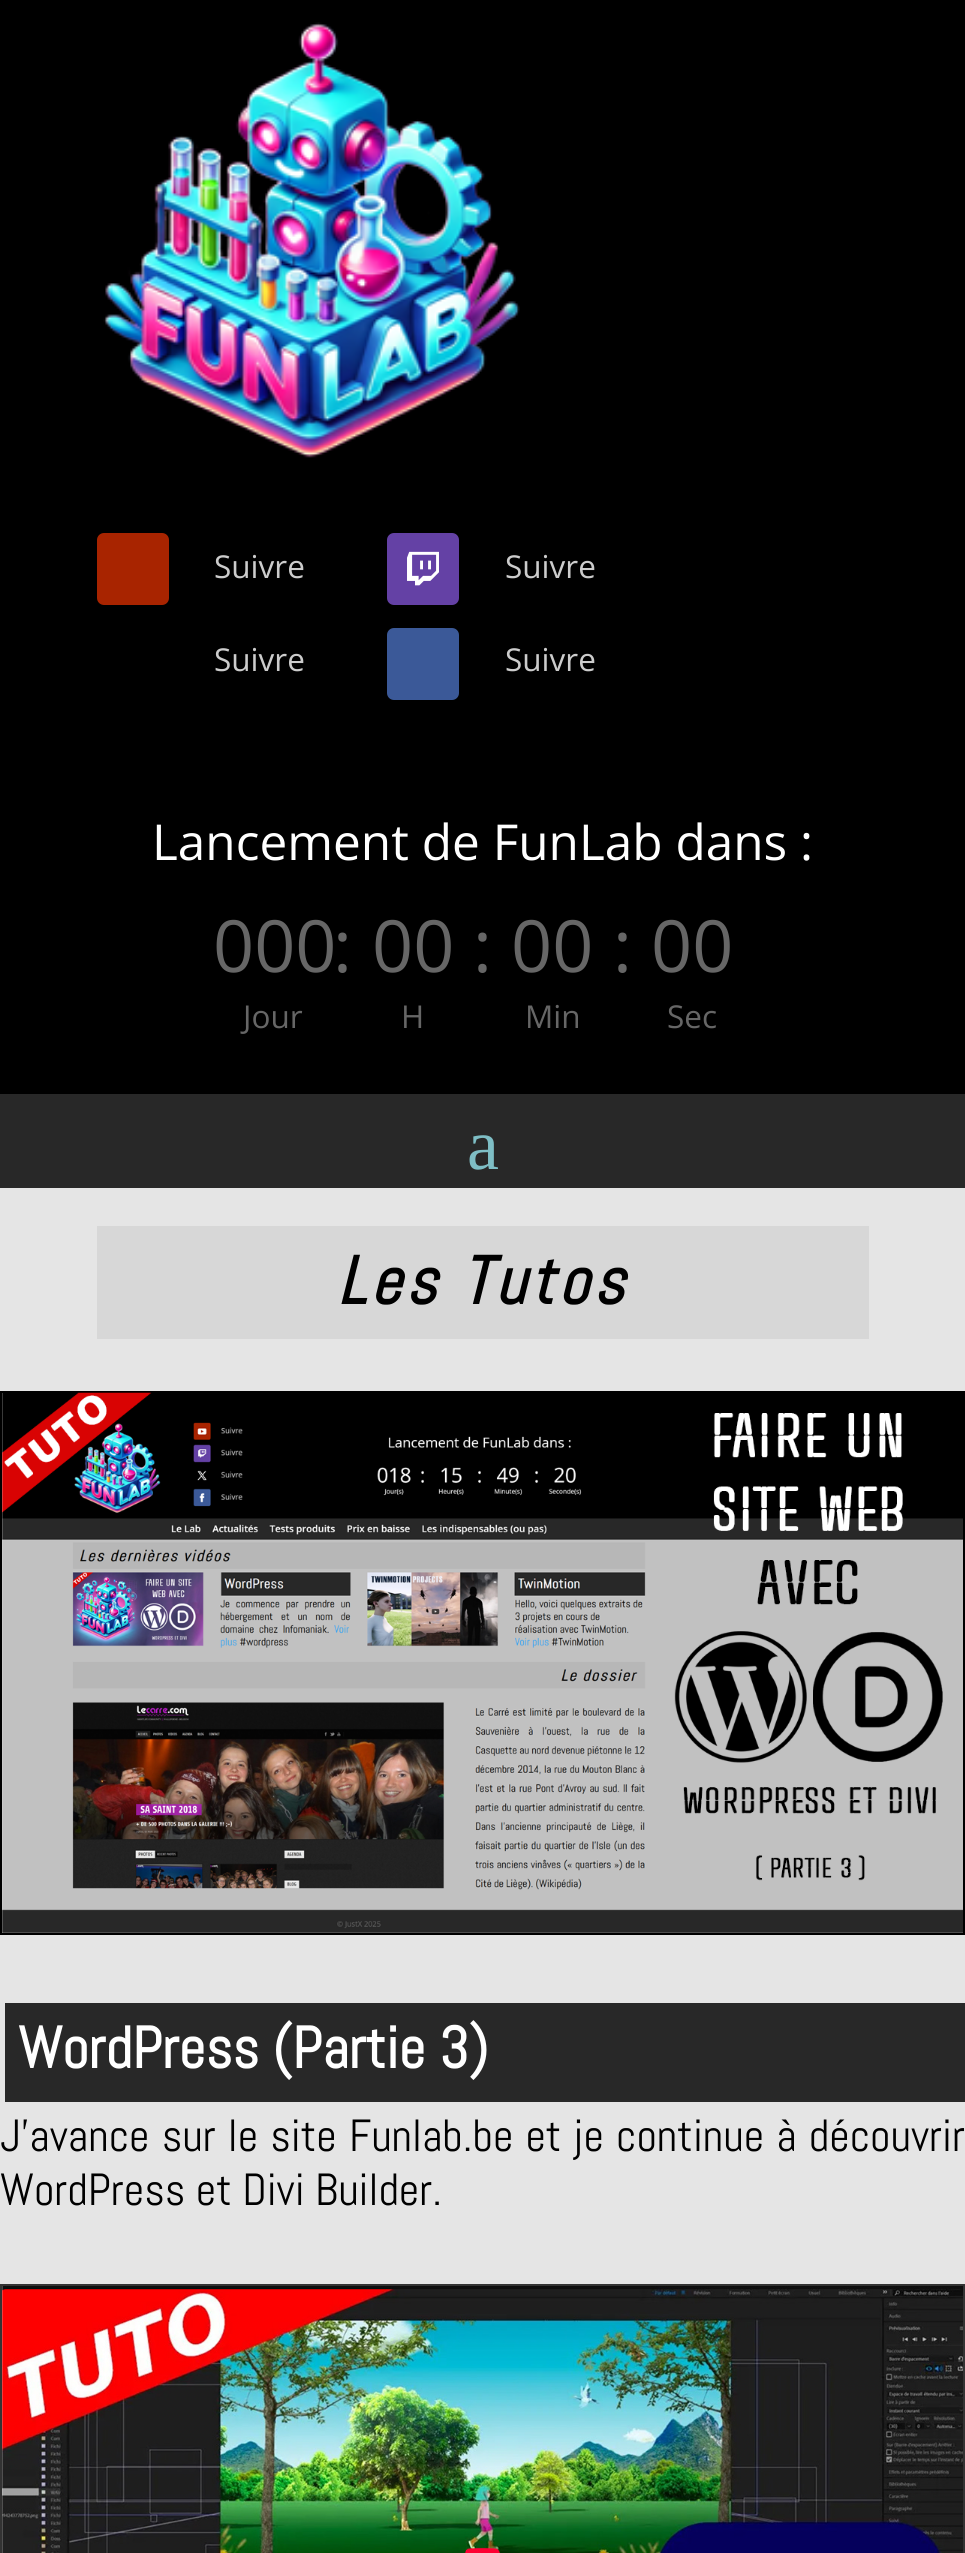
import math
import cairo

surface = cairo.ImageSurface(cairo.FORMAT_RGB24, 965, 2553)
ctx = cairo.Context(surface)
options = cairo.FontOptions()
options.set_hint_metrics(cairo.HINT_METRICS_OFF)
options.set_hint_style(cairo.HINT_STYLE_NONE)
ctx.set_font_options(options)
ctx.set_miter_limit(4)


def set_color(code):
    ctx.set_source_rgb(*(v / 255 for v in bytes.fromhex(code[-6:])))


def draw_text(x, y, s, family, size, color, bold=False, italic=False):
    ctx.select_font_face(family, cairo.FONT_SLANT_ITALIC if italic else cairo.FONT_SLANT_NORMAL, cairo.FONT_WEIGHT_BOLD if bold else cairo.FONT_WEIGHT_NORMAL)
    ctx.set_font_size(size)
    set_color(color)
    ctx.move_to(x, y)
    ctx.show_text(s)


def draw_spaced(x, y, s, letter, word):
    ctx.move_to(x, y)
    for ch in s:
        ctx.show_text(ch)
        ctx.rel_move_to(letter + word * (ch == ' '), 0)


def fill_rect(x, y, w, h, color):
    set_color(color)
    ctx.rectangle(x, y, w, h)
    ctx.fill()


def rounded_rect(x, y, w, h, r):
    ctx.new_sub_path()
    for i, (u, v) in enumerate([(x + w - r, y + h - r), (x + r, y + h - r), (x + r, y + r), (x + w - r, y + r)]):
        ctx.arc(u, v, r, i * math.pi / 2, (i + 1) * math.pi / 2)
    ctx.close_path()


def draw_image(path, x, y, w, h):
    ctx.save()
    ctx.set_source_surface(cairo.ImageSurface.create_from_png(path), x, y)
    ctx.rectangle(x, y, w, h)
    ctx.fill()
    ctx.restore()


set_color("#e5e5e5")
ctx.paint()
fill_rect(0, 0, 965, 1094, "#000000")
draw_image("assets/img1.png", 103, 22, 417, 436)
set_color("#a82400")
rounded_rect(97, 533, 72, 72, 7)
ctx.fill()
draw_text(214, 578, "Suivre", "Open Sans", 31.5, "#cccccc")
set_color("#6441a5")
rounded_rect(387, 533, 72, 72, 7)
ctx.fill()
draw_image("assets/img2.png", 407, 551, 32, 35)
draw_text(505, 578, "Suivre", "Open Sans", 31.5, "#cccccc")
draw_text(214, 671, "Suivre", "Open Sans", 31.5, "#cccccc")
set_color("#3b5998")
rounded_rect(387, 628, 72, 72, 7)
ctx.fill()
draw_text(505, 671, "Suivre", "Open Sans", 31.5, "#cccccc")
draw_text(152, 860, "Lancement de FunLab dans :", "Open Sans", 49.5, "#ffffff")
draw_text(213, 972, "000", "Open Sans", 72, "#666666")
draw_text(243, 1028, "Jour", "Open Sans", 31.5, "#666666")
draw_text(333, 972, ":", "Open Sans", 72, "#666666")
draw_text(372, 972, "00", "Open Sans", 72, "#666666")
draw_text(401, 1028, "H", "Open Sans", 31.5, "#666666")
draw_text(473, 972, ":", "Open Sans", 72, "#666666")
draw_text(511, 972, "00", "Open Sans", 72, "#666666")
draw_text(525, 1028, "Min", "Open Sans", 31.5, "#666666")
draw_text(613, 972, ":", "Open Sans", 72, "#666666")
draw_text(651, 972, "00", "Open Sans", 72, "#666666")
draw_text(667, 1028, "Sec", "Open Sans", 31.5, "#666666")
fill_rect(0, 1094, 965, 94, "#282828")
draw_text(467, 1169, "a", "Liberation Serif", 72, "#7ebec5")
fill_rect(97, 1226, 772, 113, "#d7d7d7")
ctx.select_font_face("Abel", cairo.FONT_SLANT_ITALIC, cairo.FONT_WEIGHT_BOLD)
ctx.set_font_size(67.5)
set_color("#000000")
draw_spaced(337, 1304, "Les Tutos", 4.5, 0)
ctx.rectangle(1, 1392, 963, 542)
ctx.stroke()
draw_image("assets/img3.png", 2, 1392, 961, 541)
fill_rect(5, 2003, 960, 99, "#282828")
draw_text(18, 2068, "WordPress (Partie 3)", "Abel", 58.5, "#ffffff", bold=True)
ctx.select_font_face("Abel")
ctx.set_font_size(45)
set_color("#000000")
draw_spaced(0, 2151, "J’avance sur le site Funlab.be et je continue à découvrir", 0, 1.75)
draw_text(0, 2205, "WordPress et Divi Builder.", "Abel", 45, "#000000")
ctx.rectangle(1, 2285, 963, 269)
set_color("#333333")
ctx.stroke()
draw_image("assets/img4.png", 2, 2286, 961, 267)
surface.write_to_png("output.png")
